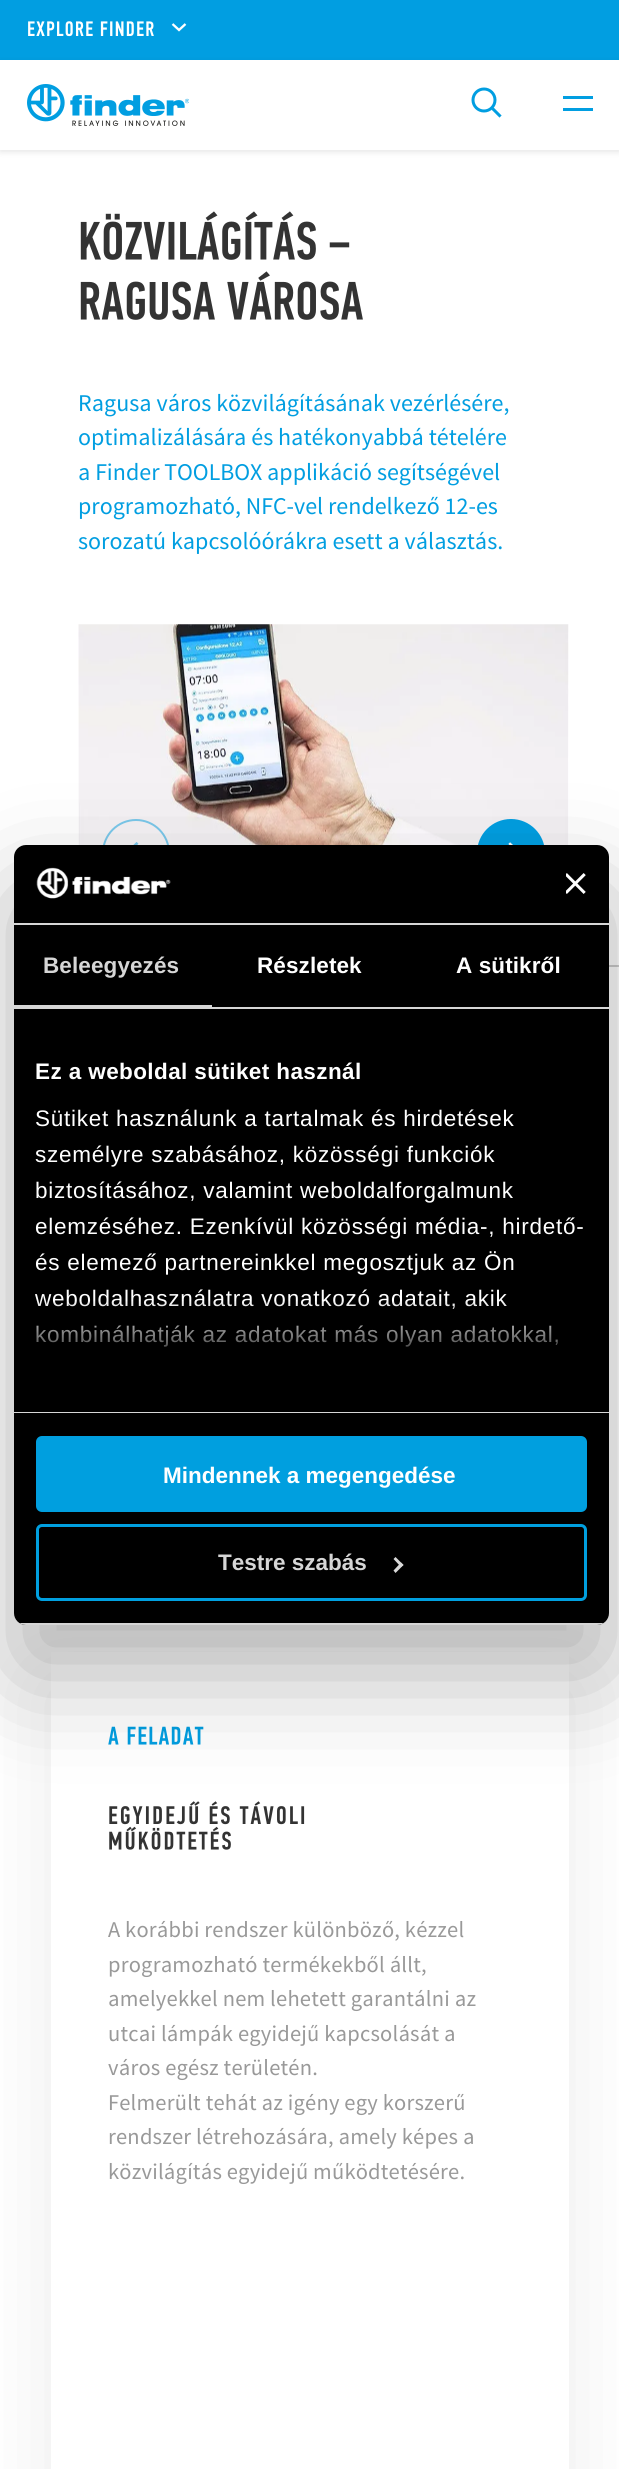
import math
import cairo

surface = cairo.ImageSurface(cairo.FORMAT_RGB24, 619, 2469)
ctx = cairo.Context(surface)
options = cairo.FontOptions()
options.set_hint_metrics(cairo.HINT_METRICS_OFF)
options.set_hint_style(cairo.HINT_STYLE_NONE)
ctx.set_font_options(options)
ctx.set_miter_limit(4)


def set_color(code):
    ctx.set_source_rgb(*(v / 255 for v in bytes.fromhex(code[-6:])))


def draw_text(x, y, s, family, size, color, bold=False, italic=False):
    ctx.select_font_face(family, cairo.FONT_SLANT_ITALIC if italic else cairo.FONT_SLANT_NORMAL, cairo.FONT_WEIGHT_BOLD if bold else cairo.FONT_WEIGHT_NORMAL)
    ctx.set_font_size(size)
    set_color(color)
    ctx.move_to(x, y)
    ctx.show_text(s)


def draw_spaced(x, y, s, letter, word):
    ctx.move_to(x, y)
    for ch in s:
        ctx.show_text(ch)
        ctx.rel_move_to(letter + word * (ch == ' '), 0)


def fill_rect(x, y, w, h, color):
    set_color(color)
    ctx.rectangle(x, y, w, h)
    ctx.fill()


def rounded_rect(x, y, w, h, r):
    ctx.new_sub_path()
    for i, (u, v) in enumerate([(x + w - r, y + h - r), (x + r, y + h - r), (x + r, y + r), (x + w - r, y + r)]):
        ctx.arc(u, v, r, i * math.pi / 2, (i + 1) * math.pi / 2)
    ctx.close_path()


def draw_shadow(x, y, w, h, r, blur, alpha):
    ctx.push_group_with_content(cairo.CONTENT_ALPHA)
    ctx.set_operator(cairo.OPERATOR_SOURCE)
    for i in range(15, -16, -2):
        e = blur * i / 6
        if min(w, h) + 2 * e > 0:
            ctx.set_source_rgba(0, 0, 0, alpha * math.erfc((i - 1) / 8.5) / 2)
            rounded_rect(x - e, y - e, w + 2 * e, h + 2 * e, max(0, min(r + e + blur * .6, min(w, h) / 2 + e)))
            ctx.fill()
    ctx.mask(ctx.pop_group())


def draw_image(path, x, y, w, h):
    ctx.save()
    ctx.set_source_surface(cairo.ImageSurface.create_from_png(path), x, y)
    ctx.rectangle(x, y, w, h)
    ctx.fill()
    ctx.restore()


set_color("#ffffff")
ctx.paint()
fill_rect(0, 0, 619, 60, "#019ee1")
draw_image("assets/img1.png", 28, 21, 126, 16)
ctx.new_path()
ctx.move_to(172.5, 24)
ctx.line_to(179, 30)
ctx.line_to(185.5, 24)
set_color("#ffffff")
ctx.set_line_width(2.3)
ctx.stroke()
set_color("#000000")
draw_shadow(0, 62, 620, 90, 0, 3, 0.1)
fill_rect(0, 60, 619, 90, "#ffffff")
draw_image("assets/img2.png", 27, 84, 162, 42)
ctx.arc(484, 100, 11, 0, 2 * math.pi)
set_color("#019ee1")
ctx.set_line_width(3)
ctx.stroke()
ctx.new_path()
ctx.move_to(493.5, 109.5)
ctx.line_to(499.5, 115.5)
ctx.set_line_cap(cairo.LINE_CAP_SQUARE)
ctx.stroke()
fill_rect(563, 96, 30, 3, "#019ee1")
fill_rect(563, 108, 30, 3, "#019ee1")
draw_image("assets/img3.png", 80, 211, 270, 49)
draw_image("assets/img4.png", 80, 271, 283, 49)
draw_text(78, 411, "Ragusa város közvilágításának vezérlésére,", "Source Sans Pro", 24, "#019ee1")
draw_text(78, 445, "optimalizálására és hatékonyabbá tételére", "Source Sans Pro", 24, "#019ee1")
draw_text(78, 480, "a Finder TOOLBOX applikáció segítségével", "Source Sans Pro", 24, "#019ee1")
draw_text(78, 514, "programozható, NFC-vel rendelkező 12-es", "Source Sans Pro", 24, "#019ee1")
draw_text(78, 549, "sorozatú kapcsolóórákra esett a választás.", "Source Sans Pro", 24, "#019ee1")
draw_image("assets/img5.png", 78, 624, 491, 221)
ctx.arc(136, 853, 33, 0, 2 * math.pi)
ctx.set_source_rgba(0.004, 0.62, 0.882, 0.5)
ctx.set_line_width(2)
ctx.set_line_cap(cairo.LINE_CAP_BUTT)
ctx.stroke()
draw_image("assets/img6.png", 133, 842, 6, 3)
set_color("#019ee1")
ctx.arc(511, 853, 33, 0, 2 * math.pi)
ctx.fill_preserve()
ctx.stroke()
draw_image("assets/img7.png", 508, 842, 5, 3)
fill_rect(609, 965, 10, 2, "#cccccc")
set_color("#000000")
draw_shadow(51, 1685, 518, 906, 0, 40.5, 0.08)
fill_rect(51, 1652, 518, 817, "#ffffff")
draw_image("assets/img8.png", 108, 1726, 96, 19)
draw_image("assets/img9.png", 109, 1801, 196, 24)
draw_image("assets/img10.png", 109, 1826, 122, 24)
ctx.set_font_size(22.5)
set_color("#999999")
draw_spaced(108, 1937, "A korábbi rendszer különböző, kézzel", 0.2, 0)
draw_spaced(108, 1972, "programozható termékekből állt,", 0.2, 0)
draw_spaced(108, 2006, "amelyekkel nem lehetett garantálni az", 0.2, 0)
draw_spaced(108, 2041, "utcai lámpák egyidejű kapcsolását a", 0.2, 0)
draw_spaced(108, 2075, "város egész területén.", 0.2, 0)
draw_spaced(108, 2110, "Felmerült tehát az igény egy korszerű", 0.2, 0)
draw_spaced(108, 2144, "rendszer létrehozására, amely képes a", 0.2, 0)
draw_spaced(108, 2179, "közvilágítás egyidejű működtetésére.", 0.2, 0)
set_color("#000000")
draw_shadow(14, 893, 595, 780, 12, 51, 0.3)
set_color("#000000")
rounded_rect(14, 845, 595, 780, 12)
ctx.fill()
fill_rect(14, 923, 595, 2, "#d6d6d6")
draw_image("assets/img11.png", 36, 867, 135, 32)
draw_image("assets/img12.png", 566, 873, 20, 21)
fill_rect(14, 1007, 595, 2, "#d6d6d6")
fill_rect(14, 1005, 198, 2, "#d6d6d6")
ctx.select_font_face("Liberation Sans", cairo.FONT_SLANT_NORMAL, cairo.FONT_WEIGHT_BOLD)
draw_spaced(43, 973, "Beleegyezés", 0.1, 0)
set_color("#ffffff")
draw_spaced(257, 973, "Részletek", 0.1, 0)
draw_spaced(456, 973, "A sütikről", 0.1, 0)
fill_rect(14, 1412, 595, 1, "#d6d6d6")
set_color("#ffffff")
draw_spaced(35, 1079, "Ez a weboldal sütiket használ", 0.4, 0)
ctx.select_font_face("Liberation Sans")
draw_spaced(35, 1126, "Sütiket használunk a tartalmak és hirdetések", 0.75, 0)
draw_spaced(35, 1162, "személyre szabásához, közösségi funkciók", 0.75, 0)
draw_spaced(35, 1198, "biztosításához, valamint weboldalforgalmunk", 0.75, 0)
draw_spaced(35, 1234, "elemzéséhez. Ezenkívül közösségi média-, hirdető-", 0.75, 0)
draw_spaced(35, 1270, "és elemező partnereinkkel megosztjuk az Ön", 0.75, 0)
draw_spaced(35, 1306, "weboldalhasználatra vonatkozó adatait, akik", 0.75, 0)
draw_spaced(35, 1342, "kombinálhatják az adatokat más olyan adatokkal,", 0.75, 0)
gradient = cairo.LinearGradient(301, 1412, 301, 1299)
gradient.add_color_stop_rgba(0, 0, 0, 0, 1)
gradient.add_color_stop_rgba(0.5, 0, 0, 0, 0.8)
gradient.add_color_stop_rgba(1, 0, 0, 0, 0)
ctx.set_source(gradient)
ctx.rectangle(36, 1301, 522, 46)
ctx.fill()
ctx.save()
rounded_rect(14, 845, 595, 780, 12)
ctx.clip()
fill_rect(14, 1623, 595, 2, "#d6d6d6")
ctx.restore()
set_color("#009fdf")
rounded_rect(37.5, 1437.5, 548, 73, 4.5)
ctx.fill_preserve()
ctx.set_line_width(3)
ctx.stroke()
draw_text(163, 1483, "Mindennek a megengedése", "Liberation Sans", 22.5, "#ffffff", bold=True)
rounded_rect(37.5, 1525.5, 548, 74, 4.5)
set_color("#009fdf")
ctx.stroke()
draw_text(218, 1570, "Testre szabás", "Liberation Sans", 22.5, "#d6d6d6", bold=True)
set_color("#d9d9d9")
ctx.new_path()
ctx.move_to(395.5, 1557)
ctx.line_to(403.5, 1565)
ctx.line_to(401, 1567)
ctx.line_to(393.5, 1559)
ctx.close_path()
ctx.fill()
ctx.new_path()
ctx.move_to(401, 1562.5)
ctx.line_to(403.5, 1565)
ctx.line_to(395.5, 1573)
ctx.line_to(393.5, 1570.5)
ctx.close_path()
ctx.fill()
surface.write_to_png("output.png")
